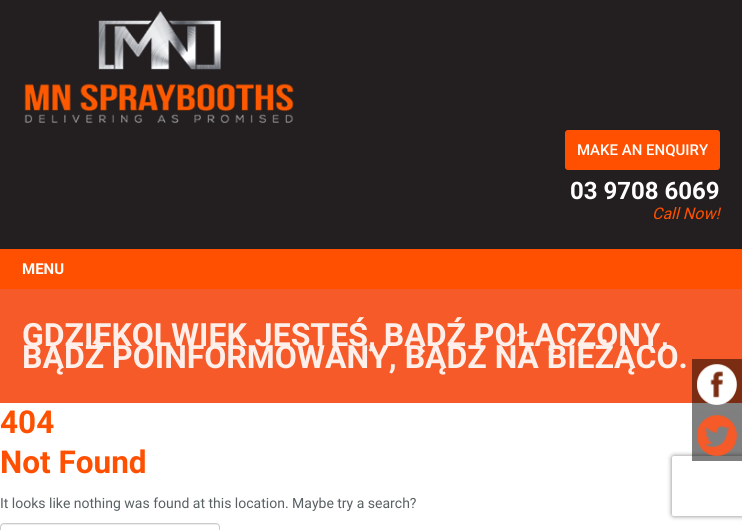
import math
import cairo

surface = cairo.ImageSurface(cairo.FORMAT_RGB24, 742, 530)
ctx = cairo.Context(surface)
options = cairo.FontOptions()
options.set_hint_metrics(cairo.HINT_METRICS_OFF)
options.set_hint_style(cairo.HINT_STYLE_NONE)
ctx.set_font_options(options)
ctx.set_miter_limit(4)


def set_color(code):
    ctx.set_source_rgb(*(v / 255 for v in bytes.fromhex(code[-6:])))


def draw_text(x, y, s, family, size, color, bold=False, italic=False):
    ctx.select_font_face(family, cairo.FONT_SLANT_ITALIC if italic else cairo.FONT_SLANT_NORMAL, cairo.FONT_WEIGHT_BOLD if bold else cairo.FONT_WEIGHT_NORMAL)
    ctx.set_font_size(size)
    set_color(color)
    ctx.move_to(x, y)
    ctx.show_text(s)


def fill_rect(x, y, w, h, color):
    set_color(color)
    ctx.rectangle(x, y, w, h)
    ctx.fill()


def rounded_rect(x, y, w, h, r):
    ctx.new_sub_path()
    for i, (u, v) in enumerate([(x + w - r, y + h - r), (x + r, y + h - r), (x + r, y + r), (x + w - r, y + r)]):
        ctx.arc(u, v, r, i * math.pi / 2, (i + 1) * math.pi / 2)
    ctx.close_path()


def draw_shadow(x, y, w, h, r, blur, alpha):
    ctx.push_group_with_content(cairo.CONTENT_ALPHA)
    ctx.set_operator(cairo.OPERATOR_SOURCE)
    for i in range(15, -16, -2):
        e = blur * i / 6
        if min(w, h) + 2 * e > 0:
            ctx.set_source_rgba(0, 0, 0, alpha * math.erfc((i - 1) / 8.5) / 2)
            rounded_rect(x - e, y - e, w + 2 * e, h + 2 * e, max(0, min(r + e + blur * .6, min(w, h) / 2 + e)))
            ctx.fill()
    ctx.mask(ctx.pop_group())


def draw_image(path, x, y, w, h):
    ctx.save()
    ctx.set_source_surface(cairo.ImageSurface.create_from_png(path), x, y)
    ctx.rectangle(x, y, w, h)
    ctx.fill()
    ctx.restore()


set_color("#ffffff")
ctx.paint()
fill_rect(692, 403, 50, 7, "#808080")
fill_rect(0, 0, 742, 249, "#231f20")
draw_image("assets/img1.png", 24, 11, 270, 112)
set_color("#fe5000")
rounded_rect(565, 130, 155, 40, 3)
ctx.fill()
draw_text(577, 155, "MAKE AN ENQUIRY", "Roboto Medium", 15, "#ffffff")
draw_text(570, 199, "03 9708 6069", "Roboto", 24, "#ffffff", bold=True)
draw_text(652, 219, "Call Now!", "Roboto", 16, "#fe5000", italic=True)
fill_rect(0, 249, 742, 40, "#fe5000")
draw_text(22, 274, "MENU", "Roboto", 15, "#ffffff", bold=True)
fill_rect(0, 289, 742, 114, "#f55a28")
fill_rect(692, 359, 50, 44, "#7b2d14")
draw_text(22, 346, "GDZIEKOLWIEK JESTEŚ, BĄDŹ POŁĄCZONY,", "Roboto", 32, "#feefea", bold=True)
draw_text(22, 368, "BĄDŹ POINFORMOWANY, BĄDŹ NA BIEŻĄCO.", "Roboto", 32, "#feefea", bold=True)
draw_image("assets/img2.png", 697, 364, 40, 41)
ctx.save()
ctx.set_fill_rule(cairo.FILL_RULE_EVEN_ODD)
ctx.new_path()
ctx.move_to(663, 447)
ctx.line_to(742, 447)
ctx.line_to(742, 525)
ctx.line_to(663, 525)
ctx.close_path()
ctx.move_to(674, 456)
ctx.line_to(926, 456)
ctx.curve_to(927, 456, 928, 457, 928, 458)
ctx.line_to(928, 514)
ctx.curve_to(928, 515, 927, 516, 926, 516)
ctx.line_to(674, 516)
ctx.curve_to(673, 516, 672, 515, 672, 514)
ctx.line_to(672, 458)
ctx.curve_to(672, 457, 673, 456, 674, 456)
ctx.close_path()
ctx.clip()
set_color("#808080")
draw_shadow(672, 456, 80, 60, 2, 2.5, 1)
ctx.restore()
ctx.set_source_rgba(0, 0, 0, 0.5)
ctx.rectangle(692, 410, 50, 51)
ctx.fill()
draw_image("assets/img3.png", 697, 415, 40, 41)
draw_text(0, 433, "404", "Roboto", 31.5, "#fe5000", bold=True)
draw_text(0, 473, "Not Found", "Roboto", 31.5, "#fe5000", bold=True)
draw_text(0, 508, "It looks like nothing was found at this location. Maybe try a search?", "Roboto", 14, "#596163")
set_color("#ececec")
ctx.new_path()
ctx.move_to(4, 525)
ctx.line_to(216, 525)
ctx.curve_to(218, 525, 219, 526, 219, 528)
ctx.line_to(219, 527)
ctx.curve_to(219, 525, 218, 524, 216, 524)
ctx.line_to(4, 524)
ctx.curve_to(2, 524, 1, 525, 1, 527)
ctx.line_to(1, 528)
ctx.curve_to(1, 526, 2, 525, 4, 525)
ctx.close_path()
ctx.fill()
rounded_rect(0.5, 523.5, 219, 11, 3.5)
set_color("#cccccc")
ctx.set_line_width(1)
ctx.stroke()
surface.write_to_png("output.png")
